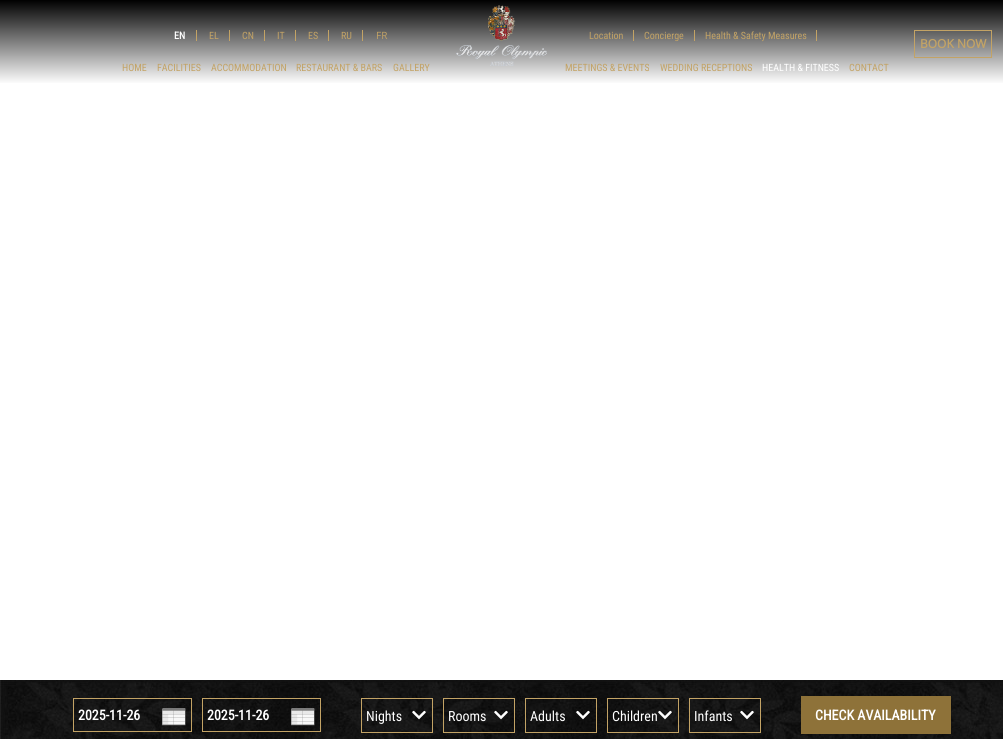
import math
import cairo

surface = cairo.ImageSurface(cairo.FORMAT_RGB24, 1003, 739)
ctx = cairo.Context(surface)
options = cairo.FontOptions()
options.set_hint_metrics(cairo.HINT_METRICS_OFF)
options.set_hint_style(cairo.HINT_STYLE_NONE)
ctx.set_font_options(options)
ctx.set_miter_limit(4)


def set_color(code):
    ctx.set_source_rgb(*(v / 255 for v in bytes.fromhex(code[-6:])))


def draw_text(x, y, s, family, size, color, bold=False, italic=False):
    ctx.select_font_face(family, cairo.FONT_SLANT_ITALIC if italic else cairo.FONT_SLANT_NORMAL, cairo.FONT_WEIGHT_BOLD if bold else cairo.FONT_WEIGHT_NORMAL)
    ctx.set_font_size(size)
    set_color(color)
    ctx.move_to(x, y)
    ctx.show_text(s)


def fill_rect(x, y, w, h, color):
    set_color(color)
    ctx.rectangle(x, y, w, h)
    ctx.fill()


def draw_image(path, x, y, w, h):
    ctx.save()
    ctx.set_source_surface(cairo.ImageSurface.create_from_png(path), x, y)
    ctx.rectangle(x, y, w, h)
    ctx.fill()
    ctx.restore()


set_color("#ffffff")
ctx.paint()
gradient = cairo.LinearGradient(502, 0, 502, 84)
gradient.add_color_stop_rgba(0, 0, 0, 0, 1)
gradient.add_color_stop_rgba(1, 1, 1, 1, 1)
ctx.set_source(gradient)
ctx.rectangle(0, 0, 1003, 83)
ctx.fill()
draw_text(174, 39, "EN", "Roboto Condensed", 10, "#ffffff", bold=True)
fill_rect(196, 30, 1, 11, "#c3a365")
draw_text(209, 39, "EL", "Roboto Condensed", 10, "#c3a365")
fill_rect(229, 30, 1, 11, "#c3a365")
draw_text(242, 39, "CN", "Roboto Condensed", 10, "#c3a365")
fill_rect(264, 30, 1, 11, "#c3a365")
draw_text(277, 39, "IT", "Roboto Condensed", 10, "#c3a365")
fill_rect(295, 30, 1, 11, "#c3a365")
draw_text(308, 39, "ES", "Roboto Condensed", 10, "#c3a365")
fill_rect(328, 30, 1, 11, "#c3a365")
draw_text(341, 39, "RU", "Roboto Condensed", 10, "#c3a365")
fill_rect(362, 30, 1, 11, "#c3a365")
draw_text(376, 39, "FR", "Open Sans", 10, "#c3a365")
draw_text(122, 71, "HOME", "Roboto Condensed", 10, "#c3a365")
draw_text(157, 71, "FACILITIES", "Roboto Condensed", 10, "#c3a365")
draw_text(211, 71, "ACCOMMODATION", "Roboto Condensed", 10, "#c3a365")
draw_text(296, 71, "RESTAURANT & BARS", "Roboto Condensed", 10, "#c3a365")
draw_text(393, 71, "GALLERY", "Roboto Condensed", 10, "#c3a365")
draw_image("assets/img1.png", 456, 5, 91, 61)
draw_text(589, 39, "Location", "Roboto Condensed", 10, "#c3a365")
fill_rect(633, 30, 1, 11, "#c3a365")
draw_text(644, 39, "Concierge", "Roboto Condensed", 10, "#c3a365")
fill_rect(694, 30, 1, 11, "#c3a365")
draw_text(705, 39, "Health & Safety Measures", "Roboto Condensed", 10, "#c3a365")
fill_rect(816, 30, 1, 11, "#c3a365")
draw_text(565, 71, "MEETINGS & EVENTS", "Roboto Condensed", 10, "#c3a365")
draw_text(660, 71, "WEDDING RECEPTIONS", "Roboto Condensed", 10, "#c3a365")
draw_text(762, 71, "HEALTH & FITNESS", "Roboto Condensed", 10, "#ffffff")
draw_text(849, 71, "CONTACT", "Roboto Condensed", 10, "#c3a365")
ctx.rectangle(914.5, 30.5, 77, 27)
ctx.set_line_width(1)
ctx.stroke()
draw_text(920, 48, "BOOK NOW", "Open Sans", 12, "#c3a365", bold=True)
draw_image("assets/img2.png", 0, 680, 1003, 59)
ctx.rectangle(73.5, 698.5, 118, 33)
ctx.stroke()
draw_text(78, 720, "2025-11-26", "Roboto Condensed", 14, "#ffffff", bold=True)
draw_image("assets/img3.png", 162, 708, 24, 18)
ctx.rectangle(202.5, 698.5, 118, 33)
set_color("#c3a365")
ctx.stroke()
draw_text(207, 720, "2025-11-26", "Roboto Condensed", 14, "#ffffff", bold=True)
draw_image("assets/img4.png", 291, 708, 24, 18)
draw_image("assets/img5.png", 412, 710, 14, 10)
ctx.rectangle(361.5, 698.5, 71, 34)
set_color("#c3a365")
ctx.stroke()
draw_text(366, 721, "Nights", "Roboto Condensed", 14, "#ffffff")
draw_image("assets/img6.png", 494, 710, 14, 10)
ctx.rectangle(443.5, 698.5, 71, 34)
set_color("#c3a365")
ctx.stroke()
draw_text(448, 721, "Rooms", "Roboto Condensed", 14, "#ffffff")
draw_image("assets/img7.png", 576, 710, 14, 10)
ctx.rectangle(525.5, 698.5, 71, 34)
set_color("#c3a365")
ctx.stroke()
draw_text(530, 721, "Adults", "Roboto Condensed", 14, "#ffffff")
draw_image("assets/img8.png", 658, 710, 14, 10)
ctx.rectangle(607.5, 698.5, 71, 34)
set_color("#c3a365")
ctx.stroke()
draw_text(612, 721, "Children", "Roboto Condensed", 14, "#ffffff")
draw_image("assets/img9.png", 740, 710, 14, 10)
ctx.rectangle(689.5, 698.5, 71, 34)
set_color("#c3a365")
ctx.stroke()
draw_text(694, 721, "Infants", "Roboto Condensed", 14, "#ffffff")
fill_rect(801, 696, 150, 38, "#8e7239")
draw_text(815, 720, "CHECK AVAILABILITY", "Roboto Condensed", 14, "#ffffff", bold=True)
surface.write_to_png("output.png")
